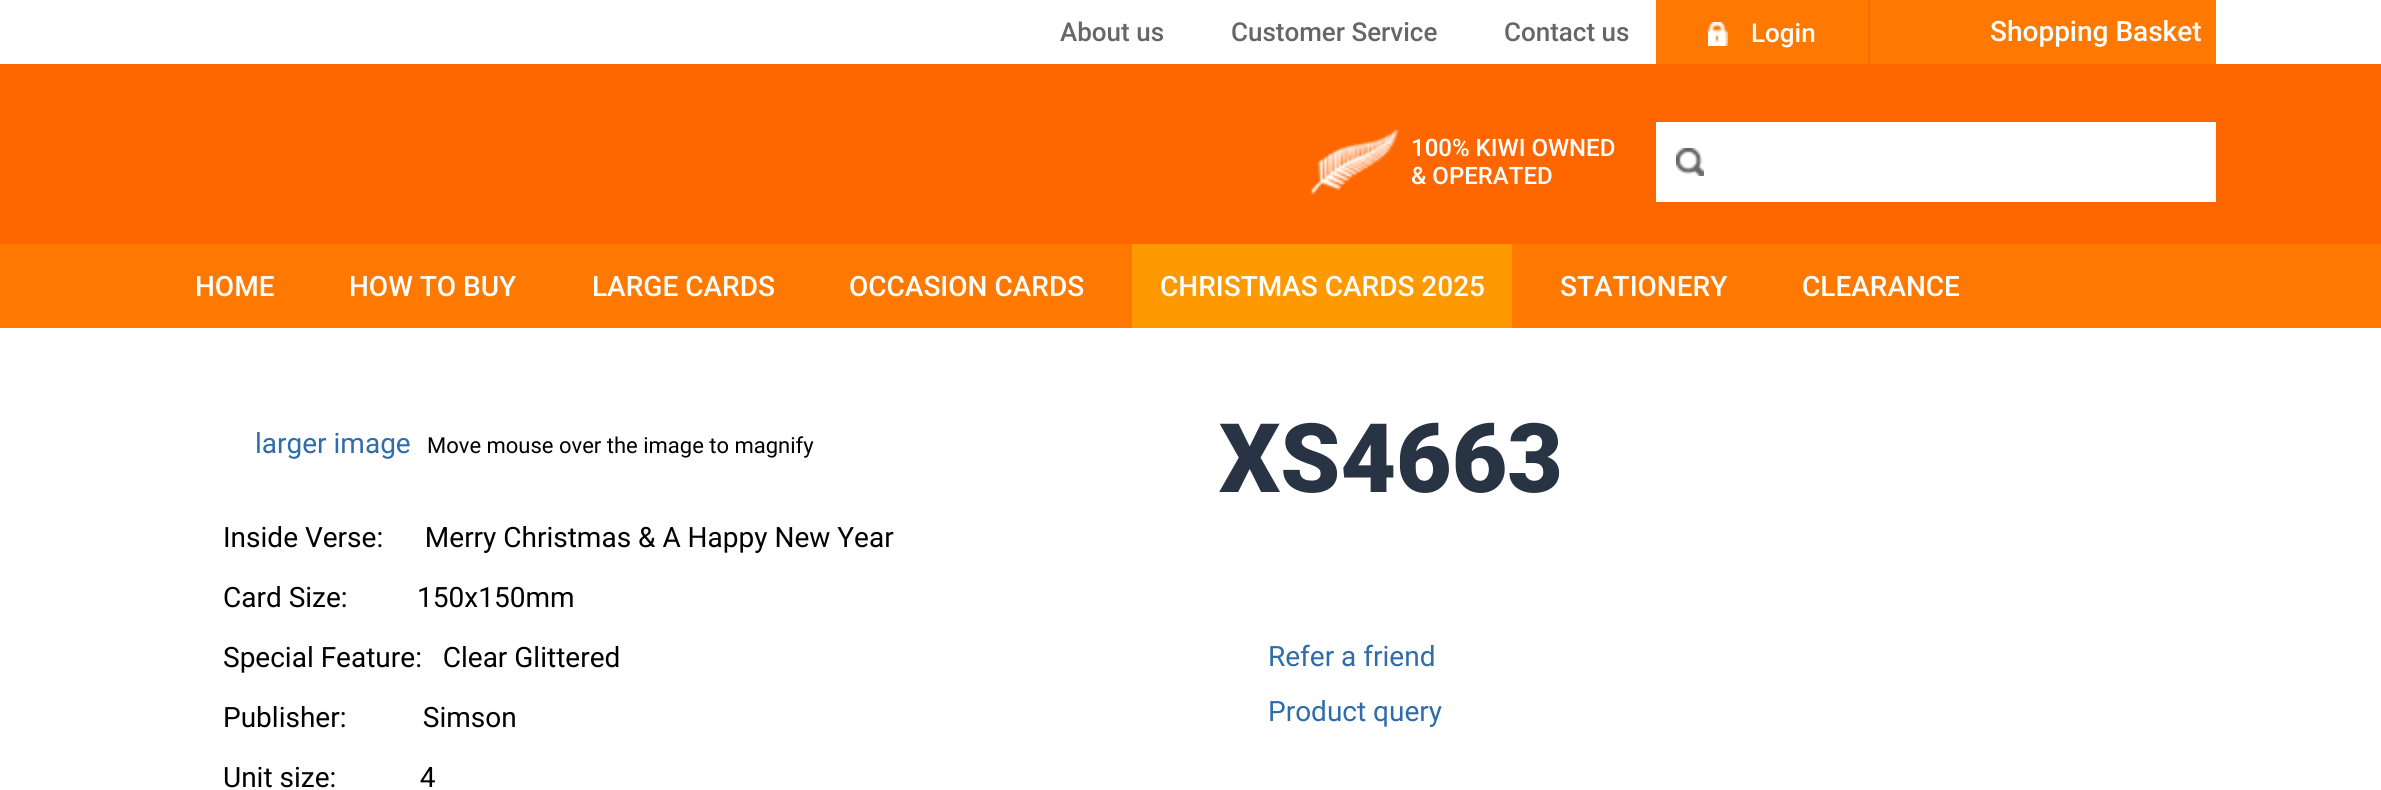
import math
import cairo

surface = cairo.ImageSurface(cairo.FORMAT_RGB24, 2381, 790)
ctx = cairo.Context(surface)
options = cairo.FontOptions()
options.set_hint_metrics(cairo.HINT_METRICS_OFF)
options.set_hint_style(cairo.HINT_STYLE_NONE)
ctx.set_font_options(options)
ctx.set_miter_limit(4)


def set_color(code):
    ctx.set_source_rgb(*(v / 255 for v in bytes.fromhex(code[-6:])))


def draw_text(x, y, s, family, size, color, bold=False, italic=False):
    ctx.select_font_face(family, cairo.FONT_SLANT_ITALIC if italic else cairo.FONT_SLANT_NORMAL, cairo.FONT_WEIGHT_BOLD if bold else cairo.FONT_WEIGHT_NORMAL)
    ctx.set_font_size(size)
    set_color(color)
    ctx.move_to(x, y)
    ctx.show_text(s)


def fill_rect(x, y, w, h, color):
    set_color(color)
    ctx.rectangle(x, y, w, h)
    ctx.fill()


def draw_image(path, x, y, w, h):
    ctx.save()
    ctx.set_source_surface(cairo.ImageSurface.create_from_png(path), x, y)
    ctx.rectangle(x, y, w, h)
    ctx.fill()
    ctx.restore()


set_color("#ffffff")
ctx.paint()
draw_text(1060, 41, "About us", "Roboto Medium", 26, "#666666")
draw_text(1231, 41, "Customer Service", "Roboto Medium", 26, "#666666")
draw_text(1504, 41, "Contact us", "Roboto Medium", 26, "#666666")
fill_rect(1656, 0, 560, 64, "#ff7900")
fill_rect(1868, 0, 2, 64, "#fe6700")
draw_image("assets/img1.png", 1708, 22, 20, 24)
draw_text(1751, 42, "Login", "Roboto Medium", 26, "#ffffff")
draw_text(1990, 41, "Shopping Basket", "Roboto Medium", 28, "#ffffff")
fill_rect(0, 64, 2381, 180, "#fe6700")
draw_image("assets/img2.png", 1310, 129, 89, 66)
draw_text(1411, 156, "100% KIWI OWNED", "Roboto Medium", 24, "#ffffff")
draw_text(1411, 184, "& OPERATED", "Roboto Medium", 24, "#ffffff")
fill_rect(1656, 122, 560, 80, "#ffffff")
draw_image("assets/img3.png", 1676, 148, 28, 28)
fill_rect(0, 244, 2381, 84, "#ff7900")
draw_text(195, 296, "HOME", "Roboto Medium", 28, "#ffffff")
draw_text(349, 296, "HOW TO BUY", "Roboto Medium", 28, "#ffffff")
draw_text(592, 296, "LARGE CARDS", "Roboto Medium", 28, "#ffffff")
draw_text(849, 296, "OCCASION CARDS", "Roboto Medium", 28, "#ffffff")
fill_rect(1132, 244, 380, 84, "#fe9900")
draw_text(1160, 296, "CHRISTMAS CARDS 2025", "Roboto Medium", 28, "#ffffff")
draw_text(1560, 296, "STATIONERY", "Roboto Medium", 28, "#ffffff")
draw_text(1802, 296, "CLEARANCE", "Roboto Medium", 28, "#ffffff")
draw_text(255, 453, "larger image", "Roboto", 28, "#2f6caa")
draw_text(427, 453, "Move mouse over the image to magnify", "Roboto", 22, "#000000")
draw_text(223, 547, "Inside Verse:      Merry Christmas & A Happy New Year", "Roboto", 28, "#000000")
draw_text(223, 607, "Card Size:          150x150mm", "Roboto", 28, "#000000")
draw_text(223, 667, "Special Feature:   Clear Glittered", "Roboto", 28, "#000000")
draw_text(223, 727, "Publisher:           Simson", "Roboto", 28, "#000000")
draw_text(223, 787, "Unit size:            4", "Roboto", 28, "#000000")
draw_text(1219, 492, "XS4663", "Roboto Black", 96, "#283344")
draw_text(1268, 666, "Refer a friend", "Roboto", 28, "#2f6caa")
draw_text(1268, 721, "Product query", "Roboto", 28, "#2f6caa")
surface.write_to_png("output.png")
